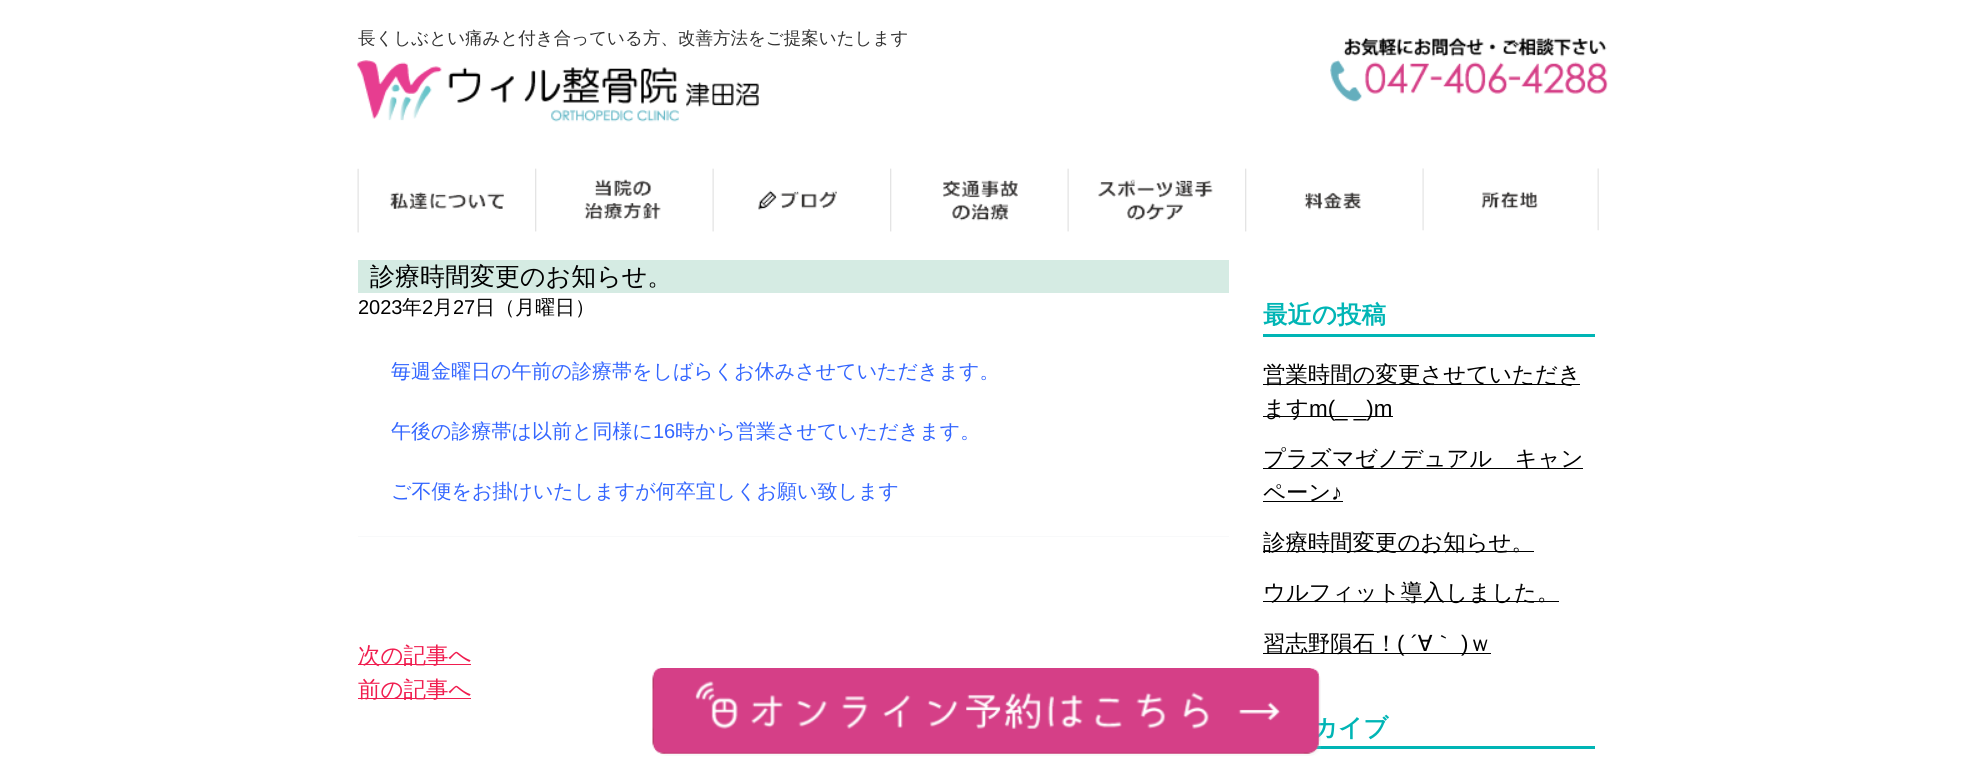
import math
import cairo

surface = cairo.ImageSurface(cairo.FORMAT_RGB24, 1965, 782)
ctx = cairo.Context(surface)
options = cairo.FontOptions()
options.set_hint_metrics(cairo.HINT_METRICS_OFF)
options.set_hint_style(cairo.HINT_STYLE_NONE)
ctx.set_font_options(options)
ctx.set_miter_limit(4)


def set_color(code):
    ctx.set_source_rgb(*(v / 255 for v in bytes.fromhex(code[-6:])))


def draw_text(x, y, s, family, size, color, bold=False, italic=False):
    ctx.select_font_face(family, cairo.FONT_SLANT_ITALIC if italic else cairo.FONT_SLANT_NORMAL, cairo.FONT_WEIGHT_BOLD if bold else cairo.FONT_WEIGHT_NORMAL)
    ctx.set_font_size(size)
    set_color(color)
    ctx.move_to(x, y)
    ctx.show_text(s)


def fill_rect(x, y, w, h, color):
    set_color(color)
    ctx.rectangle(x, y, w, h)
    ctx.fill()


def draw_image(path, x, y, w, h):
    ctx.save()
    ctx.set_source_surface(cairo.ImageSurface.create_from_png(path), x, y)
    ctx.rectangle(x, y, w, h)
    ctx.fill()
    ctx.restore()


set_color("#ffffff")
ctx.paint()
draw_text(358, 44, "長くしぶとい痛みと付き合っている方、改善方法をご提案いたします", "WenQuanYi Zen Hei Medium", 17.5, "#333333")
draw_image("assets/img1.png", 357, 60, 402, 62)
draw_image("assets/img2.png", 1330, 37, 278, 65)
draw_image("assets/img3.png", 357, 168, 147, 65)
draw_image("assets/img4.png", 535, 168, 126, 64)
draw_image("assets/img5.png", 712, 168, 125, 64)
draw_image("assets/img6.png", 890, 168, 128, 64)
draw_image("assets/img7.png", 1067, 168, 146, 64)
draw_image("assets/img8.png", 1245, 168, 116, 64)
draw_image("assets/img9.png", 1422, 168, 177, 63)
fill_rect(358, 260, 871, 33, "#d5ebe3")
draw_text(370, 285, "診療時間変更のお知らせ。", "WenQuanYi Zen Hei Medium", 25, "#000000")
draw_text(358, 314, "2023", "Liberation Sans", 20, "#000000")
draw_text(402, 314, "年", "WenQuanYi Zen Hei Medium", 20, "#000000")
draw_text(422, 314, "2", "Liberation Sans", 20, "#000000")
draw_text(433, 314, "月", "WenQuanYi Zen Hei Medium", 20, "#000000")
draw_text(453, 314, "27", "Liberation Sans", 20, "#000000")
draw_text(475, 314, "日（月曜日）", "WenQuanYi Zen Hei Medium", 20, "#000000")
draw_text(391, 378, "毎週金曜日の午前の診療帯をしばらくお休みさせていただきます。", "WenQuanYi Zen Hei Medium", 20, "#3366ff")
draw_text(391, 438, "午後の診療帯は以前と同様に", "WenQuanYi Zen Hei Medium", 20, "#3366ff")
draw_text(653, 438, "16", "Liberation Sans", 20, "#3366ff")
draw_text(675, 438, "時から営業させていただきます。", "WenQuanYi Zen Hei Medium", 20, "#3366ff")
draw_text(391, 498, "ご不便をお掛けいたしますが何卒宜しくお願い致します", "WenQuanYi Zen Hei Medium", 20, "#3366ff")
fill_rect(358, 536, 871, 1, "#f8f9fa")
fill_rect(358, 664, 113, 1, "#f01d4f")
draw_text(358, 663, "次の記事へ", "WenQuanYi Zen Hei Medium", 22.5, "#f01d4f")
fill_rect(358, 698, 113, 1, "#f01d4f")
draw_text(358, 697, "前の記事へ", "WenQuanYi Zen Hei Medium", 22.5, "#f01d4f")
fill_rect(1263, 334, 332, 3, "#00b5b5")
draw_text(1263, 323, "最近の投稿", "WenQuanYi Zen Hei", 24.5, "#00b5b5", bold=True)
fill_rect(1263, 384, 317, 1, "#000000")
draw_text(1263, 382, "営業時間の変更させていただき", "WenQuanYi Zen Hei Medium", 22.4, "#000000")
fill_rect(1263, 416, 130, 1, "#000000")
draw_text(1263, 416, "ます", "WenQuanYi Zen Hei Medium", 22.4, "#000000")
draw_text(1309, 416, "m(_ _)m", "Liberation Sans", 22.4, "#000000")
fill_rect(1263, 468, 320, 1, "#000000")
draw_text(1263, 466, "プラズマゼノデュアル　キャン", "WenQuanYi Zen Hei Medium", 22.4, "#000000")
fill_rect(1263, 501, 80, 1, "#000000")
draw_text(1263, 500, "ペーン", "WenQuanYi Zen Hei Medium", 22.4, "#000000")
draw_text(1331, 500, "♪", "Liberation Sans", 22.4, "#000000")
fill_rect(1263, 551, 271, 1, "#000000")
draw_text(1263, 550, "診療時間変更のお知らせ。", "WenQuanYi Zen Hei Medium", 22.4, "#000000")
fill_rect(1263, 601, 296, 1, "#000000")
draw_text(1263, 600, "ウルフィット導入しました。", "WenQuanYi Zen Hei Medium", 22.4, "#000000")
fill_rect(1263, 653, 228, 1, "#000000")
draw_text(1263, 651, "習志野隕石！", "WenQuanYi Zen Hei Medium", 22.4, "#000000")
draw_text(1397, 651, "( ´", "Liberation Sans", 22.4, "#000000")
draw_text(1418, 651, "∀｀", "WenQuanYi Zen Hei Medium", 22.4, "#000000")
draw_text(1461, 651, ")", "Liberation Sans", 22.4, "#000000")
draw_text(1469, 651, "ｗ", "WenQuanYi Zen Hei Medium", 22.4, "#000000")
fill_rect(1315, 746, 280, 3, "#00b5b5")
draw_text(1313, 736, "カイブ", "WenQuanYi Zen Hei", 24.5, "#00b5b5", bold=True)
draw_image("assets/img10.png", 652, 668, 669, 88)
surface.write_to_png("output.png")
